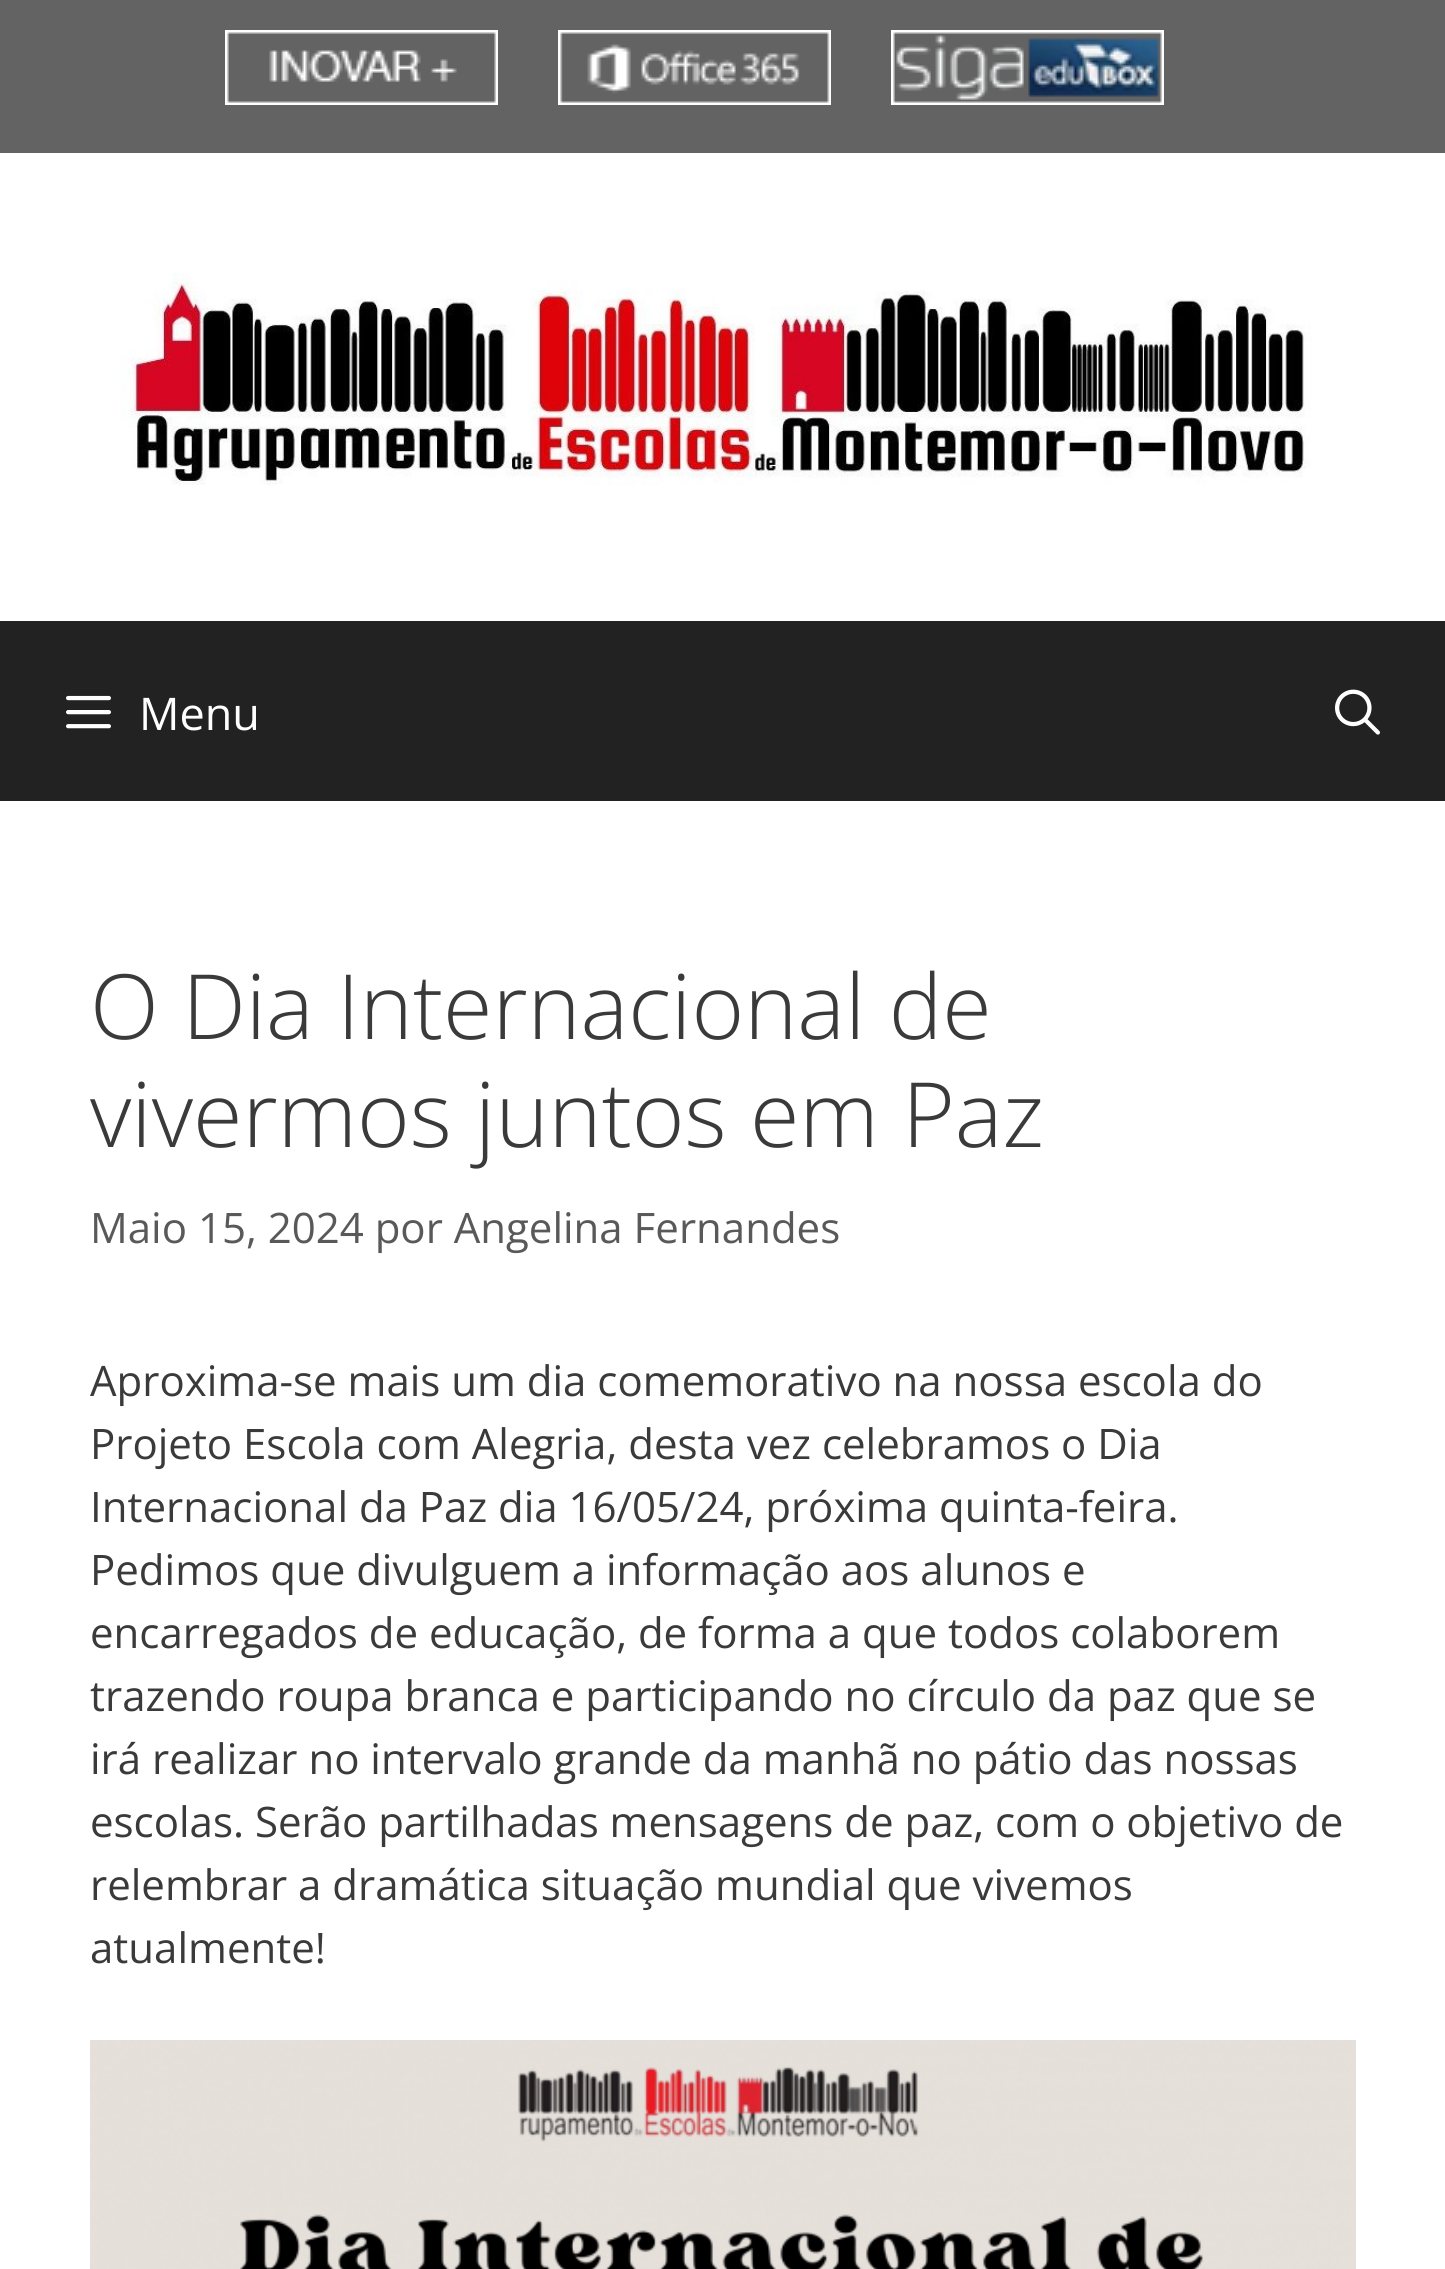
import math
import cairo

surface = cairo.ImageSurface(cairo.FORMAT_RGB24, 1445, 2269)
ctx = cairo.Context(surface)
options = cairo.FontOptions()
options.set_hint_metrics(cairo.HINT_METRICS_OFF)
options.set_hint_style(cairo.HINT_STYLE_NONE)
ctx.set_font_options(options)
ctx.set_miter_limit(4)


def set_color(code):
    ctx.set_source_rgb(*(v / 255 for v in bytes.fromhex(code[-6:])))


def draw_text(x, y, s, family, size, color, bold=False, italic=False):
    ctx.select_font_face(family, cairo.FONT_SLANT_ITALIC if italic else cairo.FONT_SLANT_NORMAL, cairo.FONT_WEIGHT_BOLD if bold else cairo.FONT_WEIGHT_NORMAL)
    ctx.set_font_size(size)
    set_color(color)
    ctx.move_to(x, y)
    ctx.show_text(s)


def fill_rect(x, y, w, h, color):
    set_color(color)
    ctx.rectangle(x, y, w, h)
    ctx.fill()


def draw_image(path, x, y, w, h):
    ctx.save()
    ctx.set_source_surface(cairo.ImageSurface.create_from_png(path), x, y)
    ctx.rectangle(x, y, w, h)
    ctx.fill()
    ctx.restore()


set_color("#ffffff")
ctx.paint()
fill_rect(0, 0, 1445, 153, "#636363")
draw_image("assets/img1.png", 225, 30, 273, 75)
draw_image("assets/img2.png", 558, 30, 273, 75)
draw_image("assets/img3.png", 891, 30, 273, 75)
draw_image("assets/img4.png", 120, 273, 1191, 212)
fill_rect(0, 621, 1445, 180, "#222222")
draw_image("assets/img5.png", 66, 695, 45, 34)
draw_text(139, 730, "Menu", "Open Sans", 45, "#ffffff")
draw_image("assets/img6.png", 1335, 689, 45, 46)
draw_text(90, 1039, "O Dia Internacional de", "Open Sans Light", 90, "#3a3a3a")
draw_text(90, 1147, "vivermos juntos em Paz", "Open Sans Light", 90, "#3a3a3a")
draw_text(90, 1243, "Maio 15, 2024 por Angelina Fernandes", "Open Sans", 42, "#595959")
draw_text(90, 1396, "Aproxima-se mais um dia comemorativo na nossa escola do", "Open Sans", 42, "#3a3a3a")
draw_text(90, 1459, "Projeto Escola com Alegria, desta vez celebramos o Dia", "Open Sans", 42, "#3a3a3a")
draw_text(90, 1522, "Internacional da Paz dia 16/05/24, próxima quinta-feira.", "Open Sans", 42, "#3a3a3a")
draw_text(90, 1585, "Pedimos que divulguem a informação aos alunos e", "Open Sans", 42, "#3a3a3a")
draw_text(90, 1648, "encarregados de educação, de forma a que todos colaborem", "Open Sans", 42, "#3a3a3a")
draw_text(90, 1711, "trazendo roupa branca e participando no círculo da paz que se", "Open Sans", 42, "#3a3a3a")
draw_text(90, 1774, "irá realizar no intervalo grande da manhã no pátio das nossas", "Open Sans", 42, "#3a3a3a")
draw_text(90, 1837, "escolas. Serão partilhadas mensagens de paz, com o objetivo de", "Open Sans", 42, "#3a3a3a")
draw_text(90, 1900, "relembrar a dramática situação mundial que vivemos", "Open Sans", 42, "#3a3a3a")
draw_text(90, 1963, "atualmente!", "Open Sans", 42, "#3a3a3a")
draw_image("assets/img7.png", 90, 2040, 1266, 229)
surface.write_to_png("output.png")
